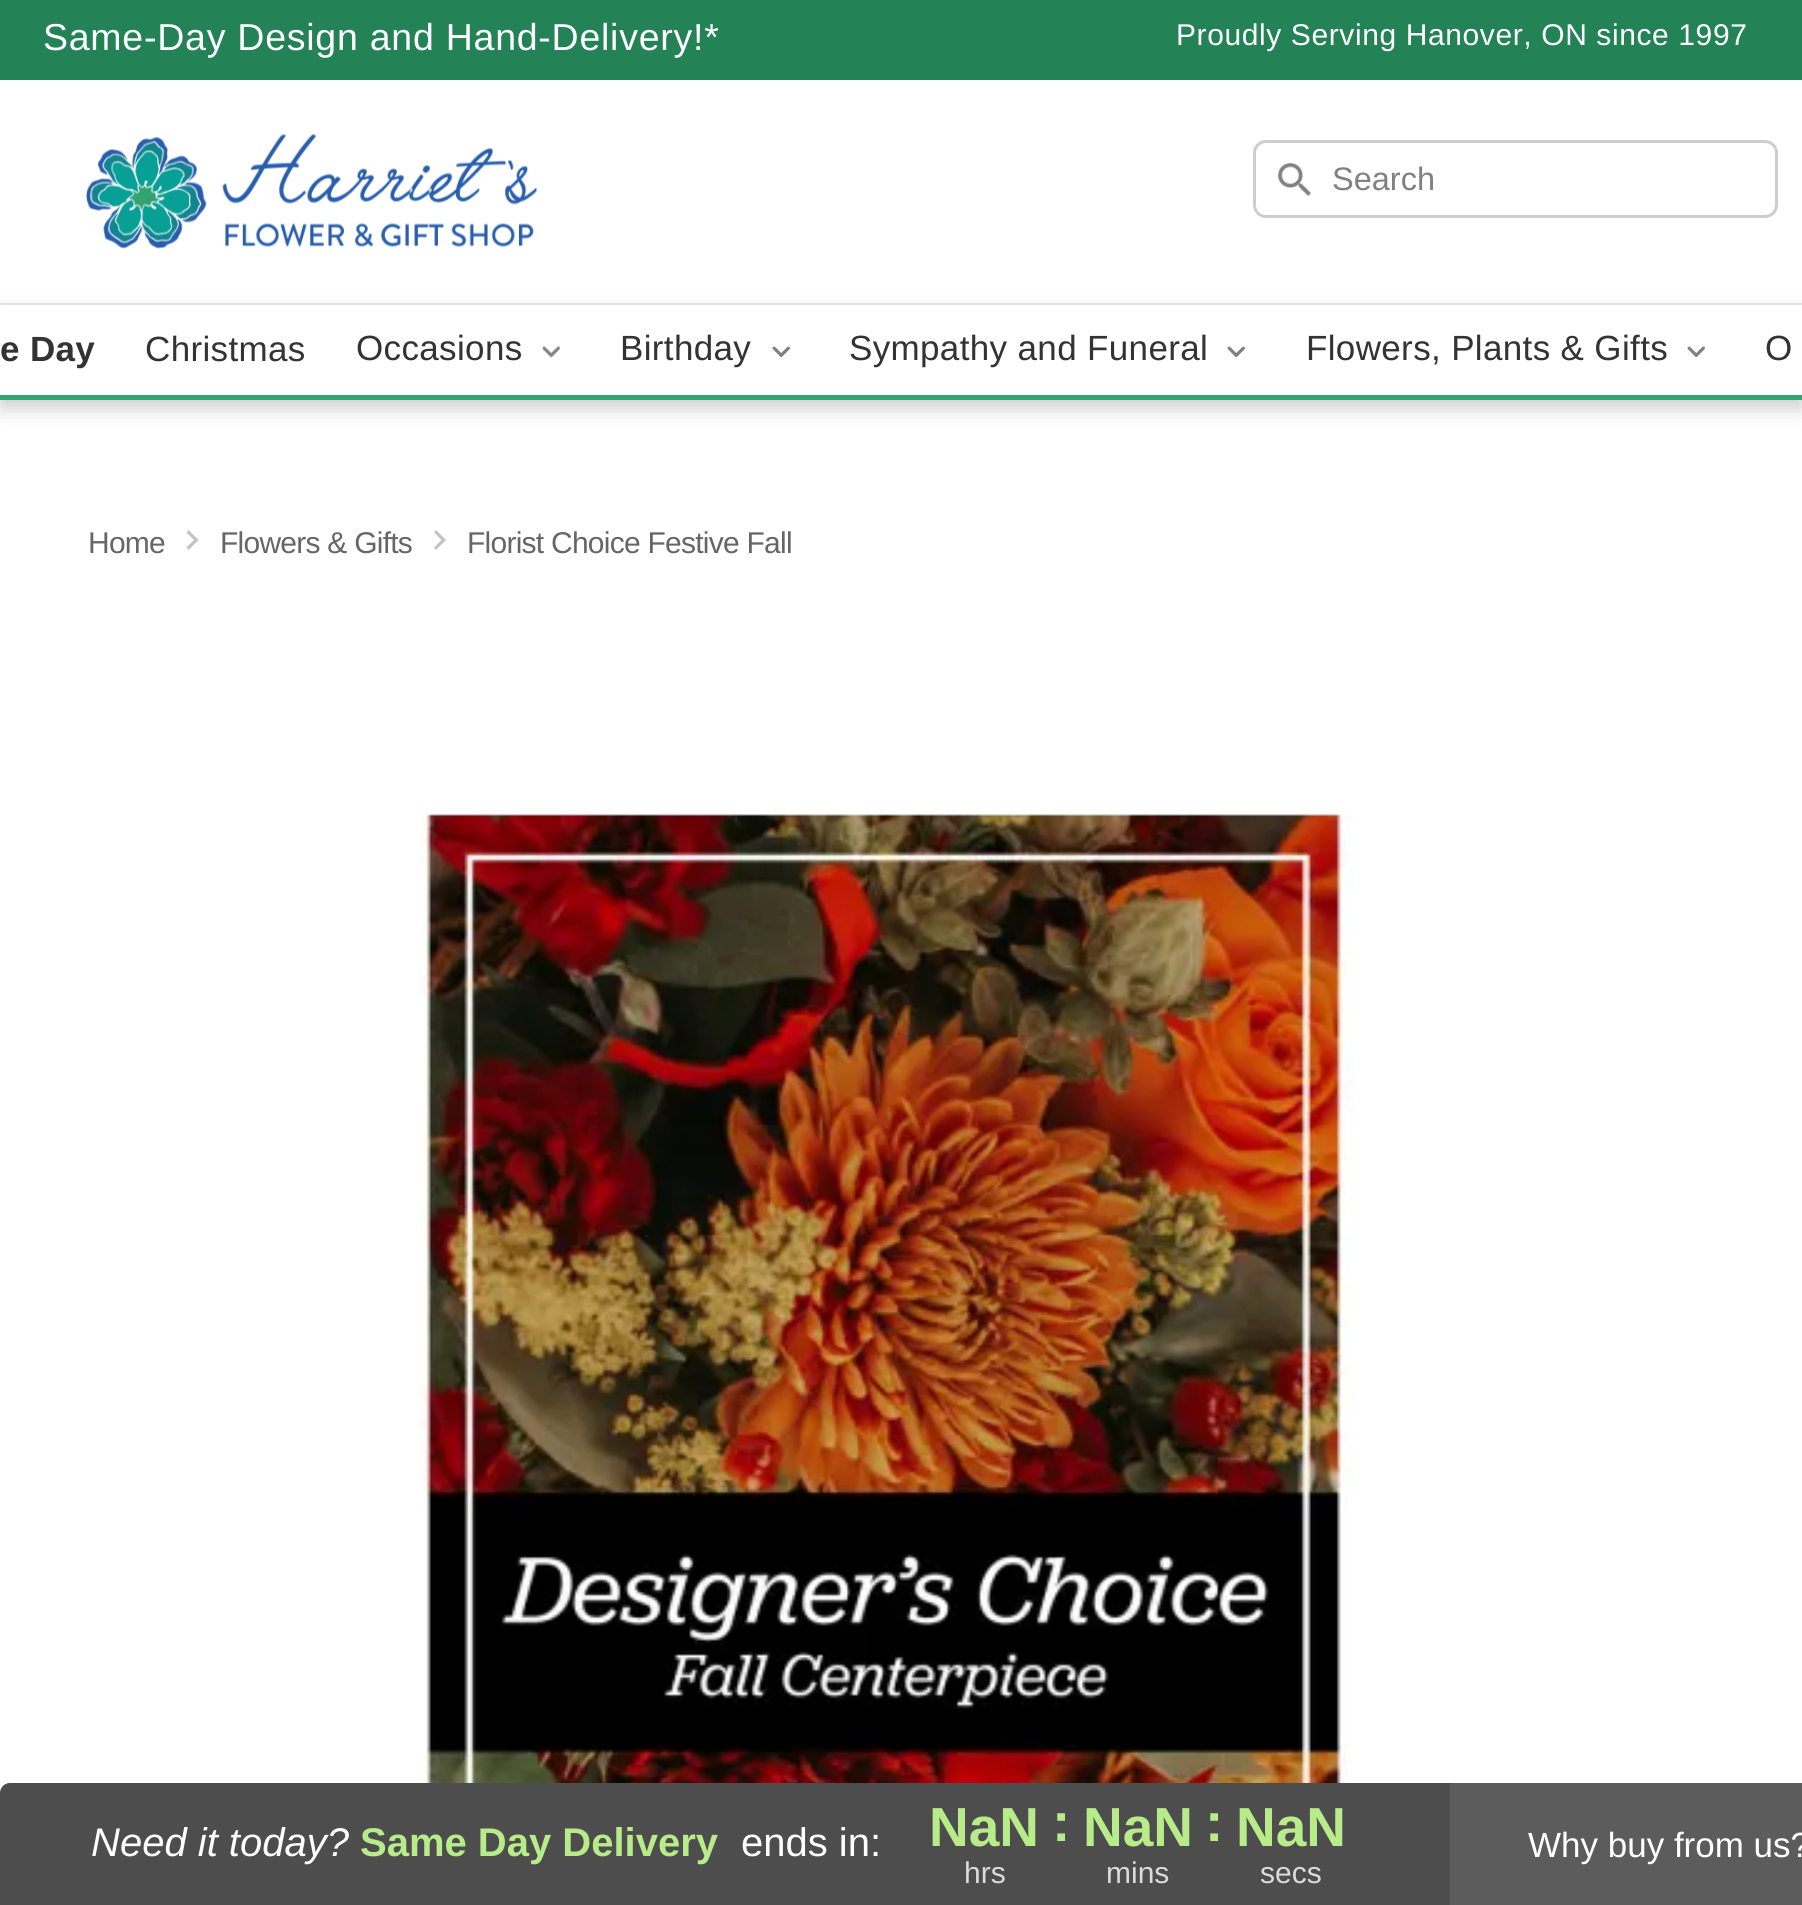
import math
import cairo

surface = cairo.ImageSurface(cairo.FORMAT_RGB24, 1802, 1905)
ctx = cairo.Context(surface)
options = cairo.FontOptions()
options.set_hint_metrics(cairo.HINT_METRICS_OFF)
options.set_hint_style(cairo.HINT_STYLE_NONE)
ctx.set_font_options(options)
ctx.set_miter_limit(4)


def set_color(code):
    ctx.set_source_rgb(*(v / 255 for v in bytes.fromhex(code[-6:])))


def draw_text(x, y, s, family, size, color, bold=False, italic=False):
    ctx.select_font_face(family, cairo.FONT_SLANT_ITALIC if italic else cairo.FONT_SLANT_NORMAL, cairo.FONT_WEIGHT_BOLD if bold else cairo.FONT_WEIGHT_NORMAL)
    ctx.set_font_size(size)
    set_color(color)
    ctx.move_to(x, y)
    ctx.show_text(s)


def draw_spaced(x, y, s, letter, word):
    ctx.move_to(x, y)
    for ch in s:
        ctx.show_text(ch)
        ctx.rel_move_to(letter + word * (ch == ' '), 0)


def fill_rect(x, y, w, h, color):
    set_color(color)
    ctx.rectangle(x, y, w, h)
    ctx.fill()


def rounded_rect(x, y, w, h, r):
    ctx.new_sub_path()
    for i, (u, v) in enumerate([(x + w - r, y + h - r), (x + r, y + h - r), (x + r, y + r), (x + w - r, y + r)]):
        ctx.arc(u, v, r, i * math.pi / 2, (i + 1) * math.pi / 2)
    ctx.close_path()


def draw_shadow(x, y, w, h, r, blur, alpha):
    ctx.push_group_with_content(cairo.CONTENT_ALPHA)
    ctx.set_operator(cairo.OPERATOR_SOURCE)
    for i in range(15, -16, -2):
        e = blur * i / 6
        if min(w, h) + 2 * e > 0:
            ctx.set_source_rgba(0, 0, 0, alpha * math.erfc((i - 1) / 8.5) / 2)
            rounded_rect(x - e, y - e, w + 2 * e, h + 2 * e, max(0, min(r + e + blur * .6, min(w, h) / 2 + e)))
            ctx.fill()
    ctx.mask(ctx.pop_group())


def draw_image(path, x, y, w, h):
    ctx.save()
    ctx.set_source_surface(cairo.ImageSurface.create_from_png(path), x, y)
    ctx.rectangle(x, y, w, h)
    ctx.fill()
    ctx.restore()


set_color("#ffffff")
ctx.paint()
fill_rect(0, 0, 1802, 80, "#238357")
ctx.select_font_face("Liberation Sans")
ctx.set_font_size(37.5)
set_color("#ffffff")
draw_spaced(43, 50, "Same-Day Design and Hand-Delivery!*", 0.75, 0)
ctx.set_font_size(30)
draw_spaced(1176, 45, "Proudly Serving Hanover, ON since 1997", 0.6, 0)
fill_rect(0, 303, 1802, 2, "#eaeaea")
draw_image("assets/img1.png", 86, 133, 452, 116)
draw_image("assets/img2.png", 1278, 163, 34, 34)
rounded_rect(1254.5, 141.5, 522, 75, 11.5)
set_color("#cdcdcd")
ctx.set_line_width(3)
ctx.stroke()
draw_text(1332, 190, "Search", "Liberation Sans", 32.5, "#818181")
set_color("#000000")
draw_shadow(0, 313, 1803, 95, 0, 10, 0.2)
fill_rect(0, 305, 1802, 90, "#ffffff")
fill_rect(0, 395, 1802, 5, "#33a370")
ctx.select_font_face("Liberation Sans", cairo.FONT_SLANT_NORMAL, cairo.FONT_WEIGHT_BOLD)
ctx.set_font_size(35)
set_color("#333333")
draw_spaced(0, 361, "e Day", 0.35, 0)
ctx.select_font_face("Liberation Sans")
draw_spaced(145, 361, "Christmas", 0.35, 0)
draw_spaced(356, 360, "Occasions", 0.35, 0)
draw_image("assets/img3.png", 542, 346, 18, 12)
draw_spaced(620, 360, "Birthday", 0.35, 0)
draw_image("assets/img4.png", 772, 346, 18, 11)
draw_spaced(849, 360, "Sympathy and Funeral", 0.35, 0)
draw_image("assets/img4.png", 1227, 346, 18, 11)
draw_spaced(1306, 360, "Flowers, Plants & Gifts", 0.35, 0)
draw_image("assets/img4.png", 1687, 346, 18, 11)
draw_spaced(1765, 360, "O", 0.35, 0)
ctx.set_font_size(30)
set_color("#666666")
draw_spaced(88, 553, "Home", -0.75, 0)
set_color("#c2c2c2")
ctx.new_path()
ctx.move_to(188.5, 530)
ctx.line_to(186.5, 532.5)
ctx.line_to(194, 540)
ctx.line_to(186.5, 547.5)
ctx.line_to(188.5, 550)
ctx.line_to(198.5, 540)
ctx.close_path()
ctx.fill()
set_color("#666666")
draw_spaced(220, 553, "Flowers & Gifts", -0.75, 0)
set_color("#c2c2c2")
ctx.new_path()
ctx.move_to(436, 530)
ctx.line_to(434, 532.5)
ctx.line_to(441.5, 540)
ctx.line_to(434, 547.5)
ctx.line_to(436, 550)
ctx.line_to(446, 540)
ctx.close_path()
ctx.fill()
set_color("#666666")
draw_spaced(467, 553, "Florist Choice Festive Fall", -0.75, 0)
draw_image("assets/img5.png", 419, 814, 936, 969)
set_color("#4d4d4d")
ctx.new_path()
ctx.move_to(10, 1783)
ctx.line_to(1450, 1783)
ctx.line_to(1450, 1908)
ctx.line_to(0, 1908)
ctx.line_to(0, 1793)
ctx.curve_to(0, 1787.5, 4.5, 1783, 10, 1783)
ctx.close_path()
ctx.fill()
draw_text(91, 1856, "Need it today?", "Liberation Sans", 40, "#ffffff", italic=True)
draw_text(360, 1856, "Same Day Delivery", "Liberation Sans", 40, "#b8eb89", bold=True)
draw_text(741, 1856, "ends in:", "Liberation Sans", 40, "#ffffff")
draw_text(929, 1846, "NaN", "Liberation Sans", 55, "#b8eb89", bold=True)
draw_text(964, 1883, "hrs", "Liberation Sans", 30, "#dbdbdb")
draw_text(1052, 1841, ":", "Liberation Sans", 55, "#b8eb89", bold=True)
draw_text(1083, 1846, "NaN", "Liberation Sans", 55, "#b8eb89", bold=True)
draw_text(1106, 1883, "mins", "Liberation Sans", 30, "#dbdbdb")
draw_text(1205, 1841, ":", "Liberation Sans", 55, "#b8eb89", bold=True)
draw_text(1236, 1846, "NaN", "Liberation Sans", 55, "#b8eb89", bold=True)
draw_text(1260, 1883, "secs", "Liberation Sans", 30, "#dbdbdb")
fill_rect(1450, 1783, 352, 122, "#5c5c5c")
draw_text(1528, 1857, "Why buy from us?", "Liberation Sans", 35, "#ffffff")
surface.write_to_png("output.png")
